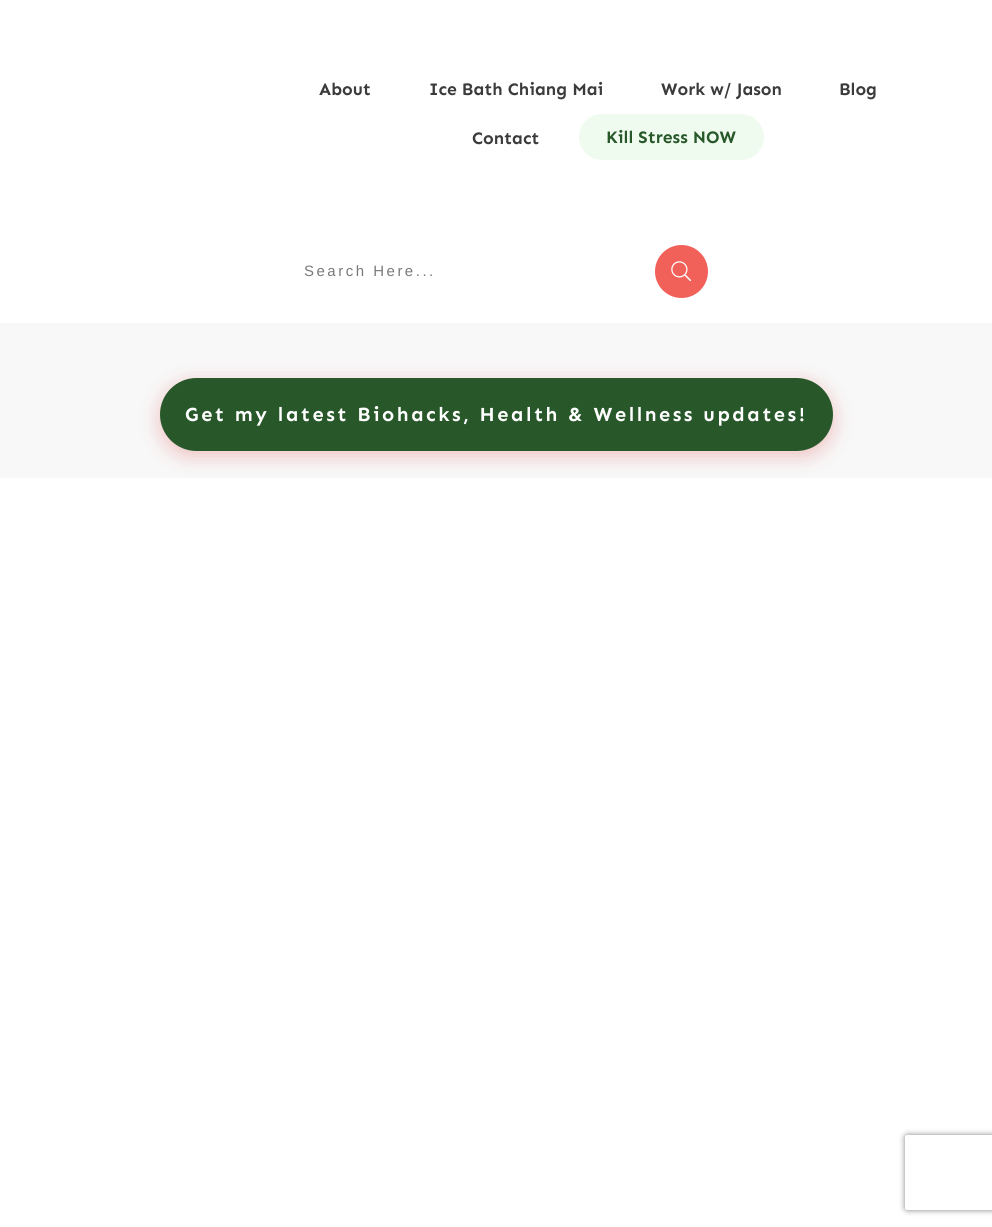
import math
import cairo

surface = cairo.ImageSurface(cairo.FORMAT_RGB24, 992, 1227)
ctx = cairo.Context(surface)
options = cairo.FontOptions()
options.set_hint_metrics(cairo.HINT_METRICS_OFF)
options.set_hint_style(cairo.HINT_STYLE_NONE)
ctx.set_font_options(options)
ctx.set_miter_limit(4)


def set_color(code):
    ctx.set_source_rgb(*(v / 255 for v in bytes.fromhex(code[-6:])))


def draw_text(x, y, s, family, size, color, bold=False, italic=False):
    ctx.select_font_face(family, cairo.FONT_SLANT_ITALIC if italic else cairo.FONT_SLANT_NORMAL, cairo.FONT_WEIGHT_BOLD if bold else cairo.FONT_WEIGHT_NORMAL)
    ctx.set_font_size(size)
    set_color(color)
    ctx.move_to(x, y)
    ctx.show_text(s)


def draw_spaced(x, y, s, letter, word):
    ctx.move_to(x, y)
    for ch in s:
        ctx.show_text(ch)
        ctx.rel_move_to(letter + word * (ch == ' '), 0)


def fill_rect(x, y, w, h, color):
    set_color(color)
    ctx.rectangle(x, y, w, h)
    ctx.fill()


def rounded_rect(x, y, w, h, r):
    ctx.new_sub_path()
    for i, (u, v) in enumerate([(x + w - r, y + h - r), (x + r, y + h - r), (x + r, y + r), (x + w - r, y + r)]):
        ctx.arc(u, v, r, i * math.pi / 2, (i + 1) * math.pi / 2)
    ctx.close_path()


def draw_shadow(x, y, w, h, r, blur, alpha):
    ctx.push_group_with_content(cairo.CONTENT_ALPHA)
    ctx.set_operator(cairo.OPERATOR_SOURCE)
    for i in range(15, -16, -2):
        e = blur * i / 6
        if min(w, h) + 2 * e > 0:
            ctx.set_source_rgba(0, 0, 0, alpha * math.erfc((i - 1) / 8.5) / 2)
            rounded_rect(x - e, y - e, w + 2 * e, h + 2 * e, max(0, min(r + e + blur * .6, min(w, h) / 2 + e)))
            ctx.fill()
    ctx.mask(ctx.pop_group())


def draw_image(path, x, y, w, h):
    ctx.save()
    ctx.set_source_surface(cairo.ImageSurface.create_from_png(path), x, y)
    ctx.rectangle(x, y, w, h)
    ctx.fill()
    ctx.restore()


set_color("#ffffff")
ctx.paint()
draw_text(319, 95, "About", "Sen", 17.5, "#3b3b3b", bold=True)
draw_text(429, 95, "Ice Bath Chiang Mai", "Sen", 17.5, "#3b3b3b", bold=True)
draw_text(661, 95, "Work w/ Jason", "Sen", 17.5, "#3b3b3b", bold=True)
draw_text(839, 95, "Blog", "Sen", 17.5, "#3b3b3b", bold=True)
draw_text(472, 144, "Contact", "Sen", 17.5, "#3b3b3b", bold=True)
set_color("#effbef")
rounded_rect(579, 114, 185, 46, 23)
ctx.fill()
draw_text(606, 143, "Kill Stress NOW", "Sen", 17.5, "#28582a", bold=True)
ctx.select_font_face("Liberation Sans")
ctx.set_font_size(15)
set_color("#7a7a7a")
draw_spaced(304, 276, "Search Here...", 2.5, 0)
set_color("#f1615a")
ctx.new_path()
ctx.arc(681.5, 271.5, 26.5, 0, 2 * math.pi)
ctx.fill()
draw_image("assets/img1.png", 671, 261, 20, 20)
fill_rect(0, 323, 992, 155, "#f8f8f8")
set_color("#d21a14")
draw_shadow(160, 383, 673, 73, 36.5, 10, 0.25)
set_color("#28582a")
rounded_rect(160, 378, 673, 73, 36.5)
ctx.fill()
ctx.select_font_face("Sen", cairo.FONT_SLANT_NORMAL, cairo.FONT_WEIGHT_BOLD)
ctx.set_font_size(20)
set_color("#ffffff")
draw_spaced(185, 421, "Get my latest Biohacks, Health & Wellness updates!", 2.5, 0)
ctx.save()
ctx.set_fill_rule(cairo.FILL_RULE_EVEN_ODD)
ctx.new_path()
ctx.move_to(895, 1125)
ctx.line_to(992, 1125)
ctx.line_to(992, 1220)
ctx.line_to(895, 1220)
ctx.close_path()
ctx.move_to(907.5, 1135)
ctx.line_to(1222.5, 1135)
ctx.curve_to(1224, 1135, 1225, 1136, 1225, 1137.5)
ctx.line_to(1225, 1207.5)
ctx.curve_to(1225, 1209, 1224, 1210, 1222.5, 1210)
ctx.line_to(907.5, 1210)
ctx.curve_to(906, 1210, 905, 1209, 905, 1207.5)
ctx.line_to(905, 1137.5)
ctx.curve_to(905, 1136, 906, 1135, 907.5, 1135)
ctx.close_path()
ctx.clip()
set_color("#808080")
draw_shadow(905, 1135, 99, 75, 2.5, 3, 1)
ctx.restore()
surface.write_to_png("output.png")
